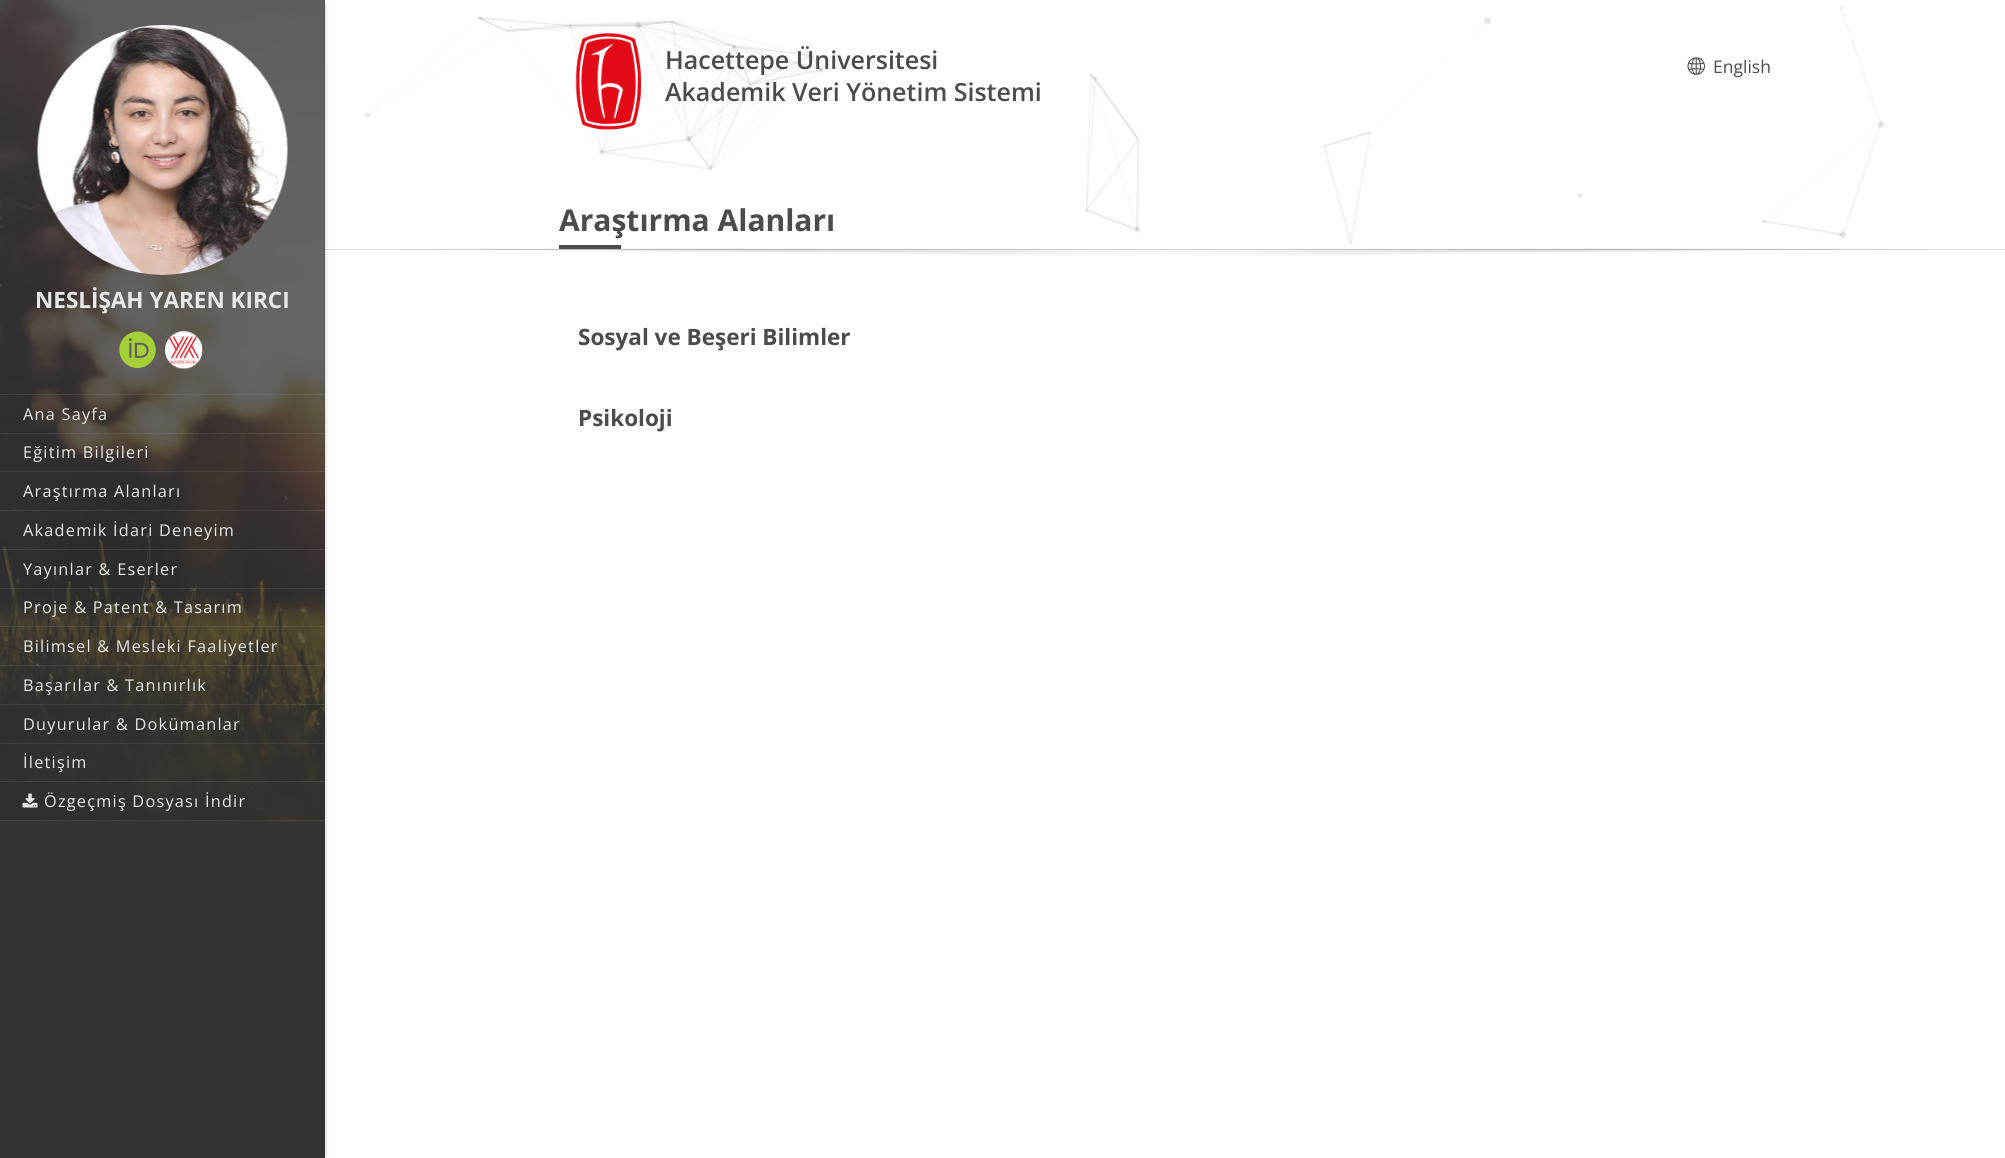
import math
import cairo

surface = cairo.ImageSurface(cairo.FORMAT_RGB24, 2005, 1158)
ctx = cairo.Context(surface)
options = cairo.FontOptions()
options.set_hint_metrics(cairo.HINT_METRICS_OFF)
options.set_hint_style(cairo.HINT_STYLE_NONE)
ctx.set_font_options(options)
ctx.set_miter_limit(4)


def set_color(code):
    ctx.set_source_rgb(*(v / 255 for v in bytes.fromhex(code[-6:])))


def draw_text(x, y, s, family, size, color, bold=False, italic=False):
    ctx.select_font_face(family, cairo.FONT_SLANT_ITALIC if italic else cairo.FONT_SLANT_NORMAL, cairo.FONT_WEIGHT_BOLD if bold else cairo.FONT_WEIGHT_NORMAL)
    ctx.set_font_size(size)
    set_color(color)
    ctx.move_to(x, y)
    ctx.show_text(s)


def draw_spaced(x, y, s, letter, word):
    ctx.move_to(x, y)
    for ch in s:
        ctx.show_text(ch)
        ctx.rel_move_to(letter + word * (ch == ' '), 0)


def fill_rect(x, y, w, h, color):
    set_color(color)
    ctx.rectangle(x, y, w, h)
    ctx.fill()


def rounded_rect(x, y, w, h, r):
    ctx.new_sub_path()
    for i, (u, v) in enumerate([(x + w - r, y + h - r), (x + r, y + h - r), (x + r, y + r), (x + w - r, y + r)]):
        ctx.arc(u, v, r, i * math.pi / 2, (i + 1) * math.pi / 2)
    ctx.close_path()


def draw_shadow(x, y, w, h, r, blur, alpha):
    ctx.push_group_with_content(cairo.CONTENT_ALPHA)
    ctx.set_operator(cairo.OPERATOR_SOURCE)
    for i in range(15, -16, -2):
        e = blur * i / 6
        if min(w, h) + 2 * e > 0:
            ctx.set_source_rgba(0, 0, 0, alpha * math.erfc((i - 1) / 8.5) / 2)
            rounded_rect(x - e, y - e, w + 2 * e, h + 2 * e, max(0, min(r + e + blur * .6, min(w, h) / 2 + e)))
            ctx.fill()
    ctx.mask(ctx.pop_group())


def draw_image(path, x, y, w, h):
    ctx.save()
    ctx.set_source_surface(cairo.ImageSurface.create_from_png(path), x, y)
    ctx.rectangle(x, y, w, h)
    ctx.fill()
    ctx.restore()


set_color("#ffffff")
ctx.paint()
fill_rect(325, 249, 1680, 1, "#dedede")
draw_image("assets/img1.png", 365, 6, 1519, 238)
draw_image("assets/img2.png", 575, 33, 66, 97)
draw_text(665, 69, "Hacettepe Üniversitesi", "Open Sans SemiBold", 25, "#4b4b4b")
draw_text(665, 101, "Akademik Veri Yönetim Sistemi", "Open Sans SemiBold", 25, "#4b4b4b")
draw_image("assets/img3.png", 1687, 57, 18, 18)
draw_text(1713, 73, "English", "Open Sans", 17.5, "#4b4b4b")
draw_text(559, 231, "Araştırma Alanları", "Open Sans", 30, "#4b4b4b", bold=True)
draw_image("assets/img4.png", 398, 248, 1529, 8)
fill_rect(559, 245, 62, 4, "#4b4b4b")
set_color("#000000")
draw_shadow(8, 5, 315, 1149, 0, 3, 0.5)
fill_rect(0, 0, 325, 1158, "#333333")
draw_image("assets/img5.png", 0, 0, 325, 822)
draw_image("assets/img6.png", 37, 25, 251, 250)
draw_text(35, 308, "NESLİŞAH YAREN KIRCI", "Open Sans", 22.5, "#e8e8e8", bold=True)
draw_image("assets/img7.png", 119, 331, 37, 37)
draw_image("assets/img8.png", 165, 331, 38, 39)
ctx.set_source_rgba(0.573, 0.573, 0.573, 0.18)
ctx.rectangle(0, 394, 325, 1)
ctx.fill()
ctx.rectangle(0, 433, 325, 1)
ctx.fill()
ctx.select_font_face("Open Sans")
ctx.set_font_size(16.25)
set_color("#e8e8e8")
draw_spaced(23, 420, "Ana Sayfa", 1.25, 0)
ctx.set_source_rgba(0.573, 0.573, 0.573, 0.18)
ctx.rectangle(0, 471, 325, 1)
ctx.fill()
set_color("#e8e8e8")
draw_spaced(23, 458, "Eğitim Bilgileri", 1.25, 0)
ctx.set_source_rgba(0.573, 0.573, 0.573, 0.18)
ctx.rectangle(0, 510, 325, 1)
ctx.fill()
set_color("#e8e8e8")
draw_spaced(23, 497, "Araştırma Alanları", 1.25, 0)
ctx.set_source_rgba(0.573, 0.573, 0.573, 0.18)
ctx.rectangle(0, 549, 325, 1)
ctx.fill()
set_color("#e8e8e8")
draw_spaced(23, 536, "Akademik İdari Deneyim", 1.25, 0)
ctx.set_source_rgba(0.573, 0.573, 0.573, 0.18)
ctx.rectangle(0, 588, 325, 1)
ctx.fill()
set_color("#e8e8e8")
draw_spaced(23, 575, "Yayınlar & Eserler", 1.25, 0)
ctx.set_source_rgba(0.573, 0.573, 0.573, 0.18)
ctx.rectangle(0, 626, 325, 1)
ctx.fill()
set_color("#e8e8e8")
draw_spaced(23, 613, "Proje & Patent & Tasarım", 1.25, 0)
ctx.set_source_rgba(0.573, 0.573, 0.573, 0.18)
ctx.rectangle(0, 665, 325, 1)
ctx.fill()
set_color("#e8e8e8")
draw_spaced(23, 652, "Bilimsel & Mesleki Faaliyetler", 1.25, 0)
ctx.set_source_rgba(0.573, 0.573, 0.573, 0.18)
ctx.rectangle(0, 704, 325, 1)
ctx.fill()
set_color("#e8e8e8")
draw_spaced(23, 691, "Başarılar & Tanınırlık", 1.25, 0)
ctx.set_source_rgba(0.573, 0.573, 0.573, 0.18)
ctx.rectangle(0, 743, 325, 1)
ctx.fill()
set_color("#e8e8e8")
draw_spaced(23, 730, "Duyurular & Dokümanlar", 1.25, 0)
ctx.set_source_rgba(0.573, 0.573, 0.573, 0.18)
ctx.rectangle(0, 781, 325, 1)
ctx.fill()
set_color("#e8e8e8")
draw_spaced(23, 768, "İletişim", 1.25, 0)
ctx.set_source_rgba(0.573, 0.573, 0.573, 0.18)
ctx.rectangle(0, 820, 325, 1)
ctx.fill()
draw_image("assets/img9.png", 22, 793, 16, 15)
set_color("#e8e8e8")
draw_spaced(44, 807, "Özgeçmiş Dosyası İndir", 1.25, 0)
draw_text(578, 345, "Sosyal ve Beşeri Bilimler", "Open Sans", 22.5, "#4b4b4b", bold=True)
draw_text(578, 426, "Psikoloji", "Open Sans", 22.5, "#4b4b4b", bold=True)
surface.write_to_png("output.png")
